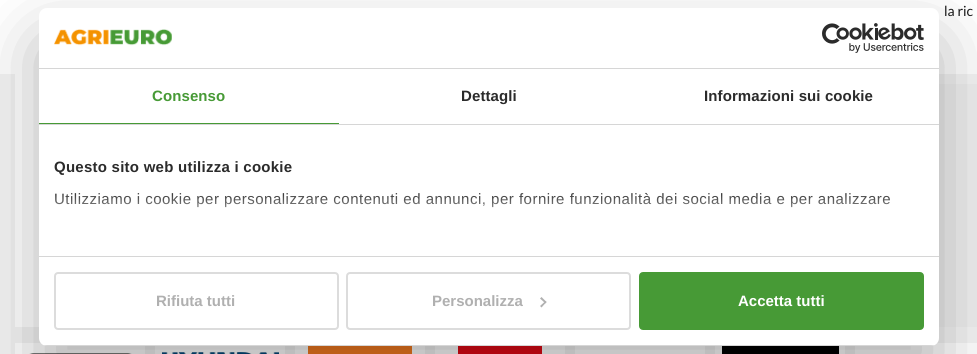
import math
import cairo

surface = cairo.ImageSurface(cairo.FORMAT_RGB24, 977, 354)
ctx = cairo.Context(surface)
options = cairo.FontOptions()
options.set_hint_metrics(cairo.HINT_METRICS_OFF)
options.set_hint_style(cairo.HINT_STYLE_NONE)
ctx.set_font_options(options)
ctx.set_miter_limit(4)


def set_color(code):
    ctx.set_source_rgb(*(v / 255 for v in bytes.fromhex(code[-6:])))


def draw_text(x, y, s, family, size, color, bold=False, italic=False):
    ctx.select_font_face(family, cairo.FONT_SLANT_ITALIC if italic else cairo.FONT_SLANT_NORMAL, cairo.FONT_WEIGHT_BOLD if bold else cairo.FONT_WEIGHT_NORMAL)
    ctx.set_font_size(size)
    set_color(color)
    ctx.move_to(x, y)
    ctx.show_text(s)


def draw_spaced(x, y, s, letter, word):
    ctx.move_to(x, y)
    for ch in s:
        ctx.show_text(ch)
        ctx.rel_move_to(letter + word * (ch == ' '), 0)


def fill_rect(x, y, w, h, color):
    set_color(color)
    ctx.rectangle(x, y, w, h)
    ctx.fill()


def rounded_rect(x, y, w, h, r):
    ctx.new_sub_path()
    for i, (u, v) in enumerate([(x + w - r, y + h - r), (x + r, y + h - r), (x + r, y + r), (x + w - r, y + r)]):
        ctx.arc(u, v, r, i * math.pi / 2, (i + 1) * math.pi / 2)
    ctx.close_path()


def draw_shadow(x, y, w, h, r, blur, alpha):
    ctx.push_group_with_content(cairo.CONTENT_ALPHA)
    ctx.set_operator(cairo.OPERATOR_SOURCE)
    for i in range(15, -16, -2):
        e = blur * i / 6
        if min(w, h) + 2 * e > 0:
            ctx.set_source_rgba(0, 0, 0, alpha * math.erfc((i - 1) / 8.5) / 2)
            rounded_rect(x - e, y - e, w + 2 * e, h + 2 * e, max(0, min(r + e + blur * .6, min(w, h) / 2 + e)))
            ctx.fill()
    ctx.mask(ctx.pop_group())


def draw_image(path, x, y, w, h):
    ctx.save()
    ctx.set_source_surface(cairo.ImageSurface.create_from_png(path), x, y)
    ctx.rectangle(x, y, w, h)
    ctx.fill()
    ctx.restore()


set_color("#f3f3f3")
ctx.paint()
fill_rect(0, 0, 977, 74, "#ffffff")
draw_text(944, 16, "la ric", "Lato", 14, "#1a1a1a")
gradient = cairo.LinearGradient(329, 136, 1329, 136)
gradient.add_color_stop_rgba(0.08, 0.933, 0.933, 0.933, 1)
gradient.add_color_stop_rgba(0.18, 0.867, 0.867, 0.867, 1)
gradient.add_color_stop_rgba(0.33, 0.933, 0.933, 0.933, 1)
ctx.set_source(gradient)
ctx.rectangle(939, 84, 38, 243)
ctx.fill()
fill_rect(15, 74, 325, 253, "#ffffff")
fill_rect(15, 343, 130, 11, "#ffffff")
draw_image("assets/img1.png", 29, 353, 103, 1)
fill_rect(155, 346, 130, 8, "#ffffff")
draw_image("assets/img2.png", 162, 352, 117, 2)
fill_rect(295, 346, 130, 8, "#ffffff")
fill_rect(308, 346, 104, 8, "#f37a1f")
fill_rect(435, 346, 130, 8, "#ffffff")
fill_rect(458, 346, 84, 8, "#e20914")
fill_rect(575, 346, 130, 8, "#ffffff")
fill_rect(715, 346, 130, 8, "#ffffff")
fill_rect(722, 346, 117, 8, "#000000")
fill_rect(855, 343, 122, 11, "#ffffff")
set_color("#000000")
draw_shadow(39, 40, 900, 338, 8, 34, 0.3)
set_color("#ffffff")
rounded_rect(39, 8, 900, 338, 8)
ctx.fill()
fill_rect(39, 68, 900, 1, "#d6d6d6")
draw_image("assets/img3.png", 54, 29, 118, 17)
draw_image("assets/img4.png", 822, 23, 102, 30)
fill_rect(39, 124, 900, 1, "#d6d6d6")
fill_rect(39, 123, 300, 1, "#479a36")
ctx.select_font_face("Liberation Sans", cairo.FONT_SLANT_NORMAL, cairo.FONT_WEIGHT_BOLD)
ctx.set_font_size(15)
draw_spaced(152, 101, "Consenso", 0.1, 0)
set_color("#2b2b2b")
draw_spaced(461, 101, "Dettagli", 0.1, 0)
draw_spaced(704, 101, "Informazioni sui cookie", 0.1, 0)
fill_rect(39, 256, 900, 1, "#d6d6d6")
set_color("#2b2b2b")
draw_spaced(54, 172, "Questo sito web utilizza i cookie", 0.25, 0)
ctx.select_font_face("Liberation Sans")
draw_spaced(54, 204, "Utilizziamo i cookie per personalizzare contenuti ed annunci, per fornire funzionalità dei social media e per analizzare", 0.5, 0)
gradient = cairo.LinearGradient(483, 256, 483, 191)
gradient.add_color_stop_rgba(0, 1, 1, 1, 1)
gradient.add_color_stop_rgba(0.5, 1, 1, 1, 0.8)
gradient.add_color_stop_rgba(1, 1, 1, 1, 0)
ctx.set_source(gradient)
ctx.rectangle(54, 193, 836, 15)
ctx.fill()
ctx.save()
rounded_rect(39, 8, 900, 338, 8)
ctx.clip()
fill_rect(39, 345, 900, 1, "#d6d6d6")
ctx.restore()
rounded_rect(55, 273, 283, 56, 3)
set_color("#dcdcdc")
ctx.stroke()
draw_text(156, 306, "Rifiuta tutti", "Liberation Sans", 15, "#b0b0b0", bold=True)
rounded_rect(347, 273, 283, 56, 3)
set_color("#dcdcdc")
ctx.stroke()
draw_text(432, 306, "Personalizza", "Liberation Sans", 15, "#b0b0b0", bold=True)
ctx.new_path()
ctx.move_to(541.5, 297)
ctx.line_to(546.5, 302)
ctx.line_to(545.5, 303.5)
ctx.line_to(540, 298.5)
ctx.close_path()
ctx.fill()
ctx.new_path()
ctx.move_to(545.5, 301)
ctx.line_to(546.5, 302)
ctx.line_to(541.5, 307.5)
ctx.line_to(540, 306)
ctx.close_path()
ctx.fill()
set_color("#479a36")
rounded_rect(640, 273, 283, 56, 3)
ctx.fill_preserve()
ctx.stroke()
draw_text(738, 306, "Accetta tutti", "Liberation Sans", 15, "#ffffff", bold=True)
surface.write_to_png("output.png")
